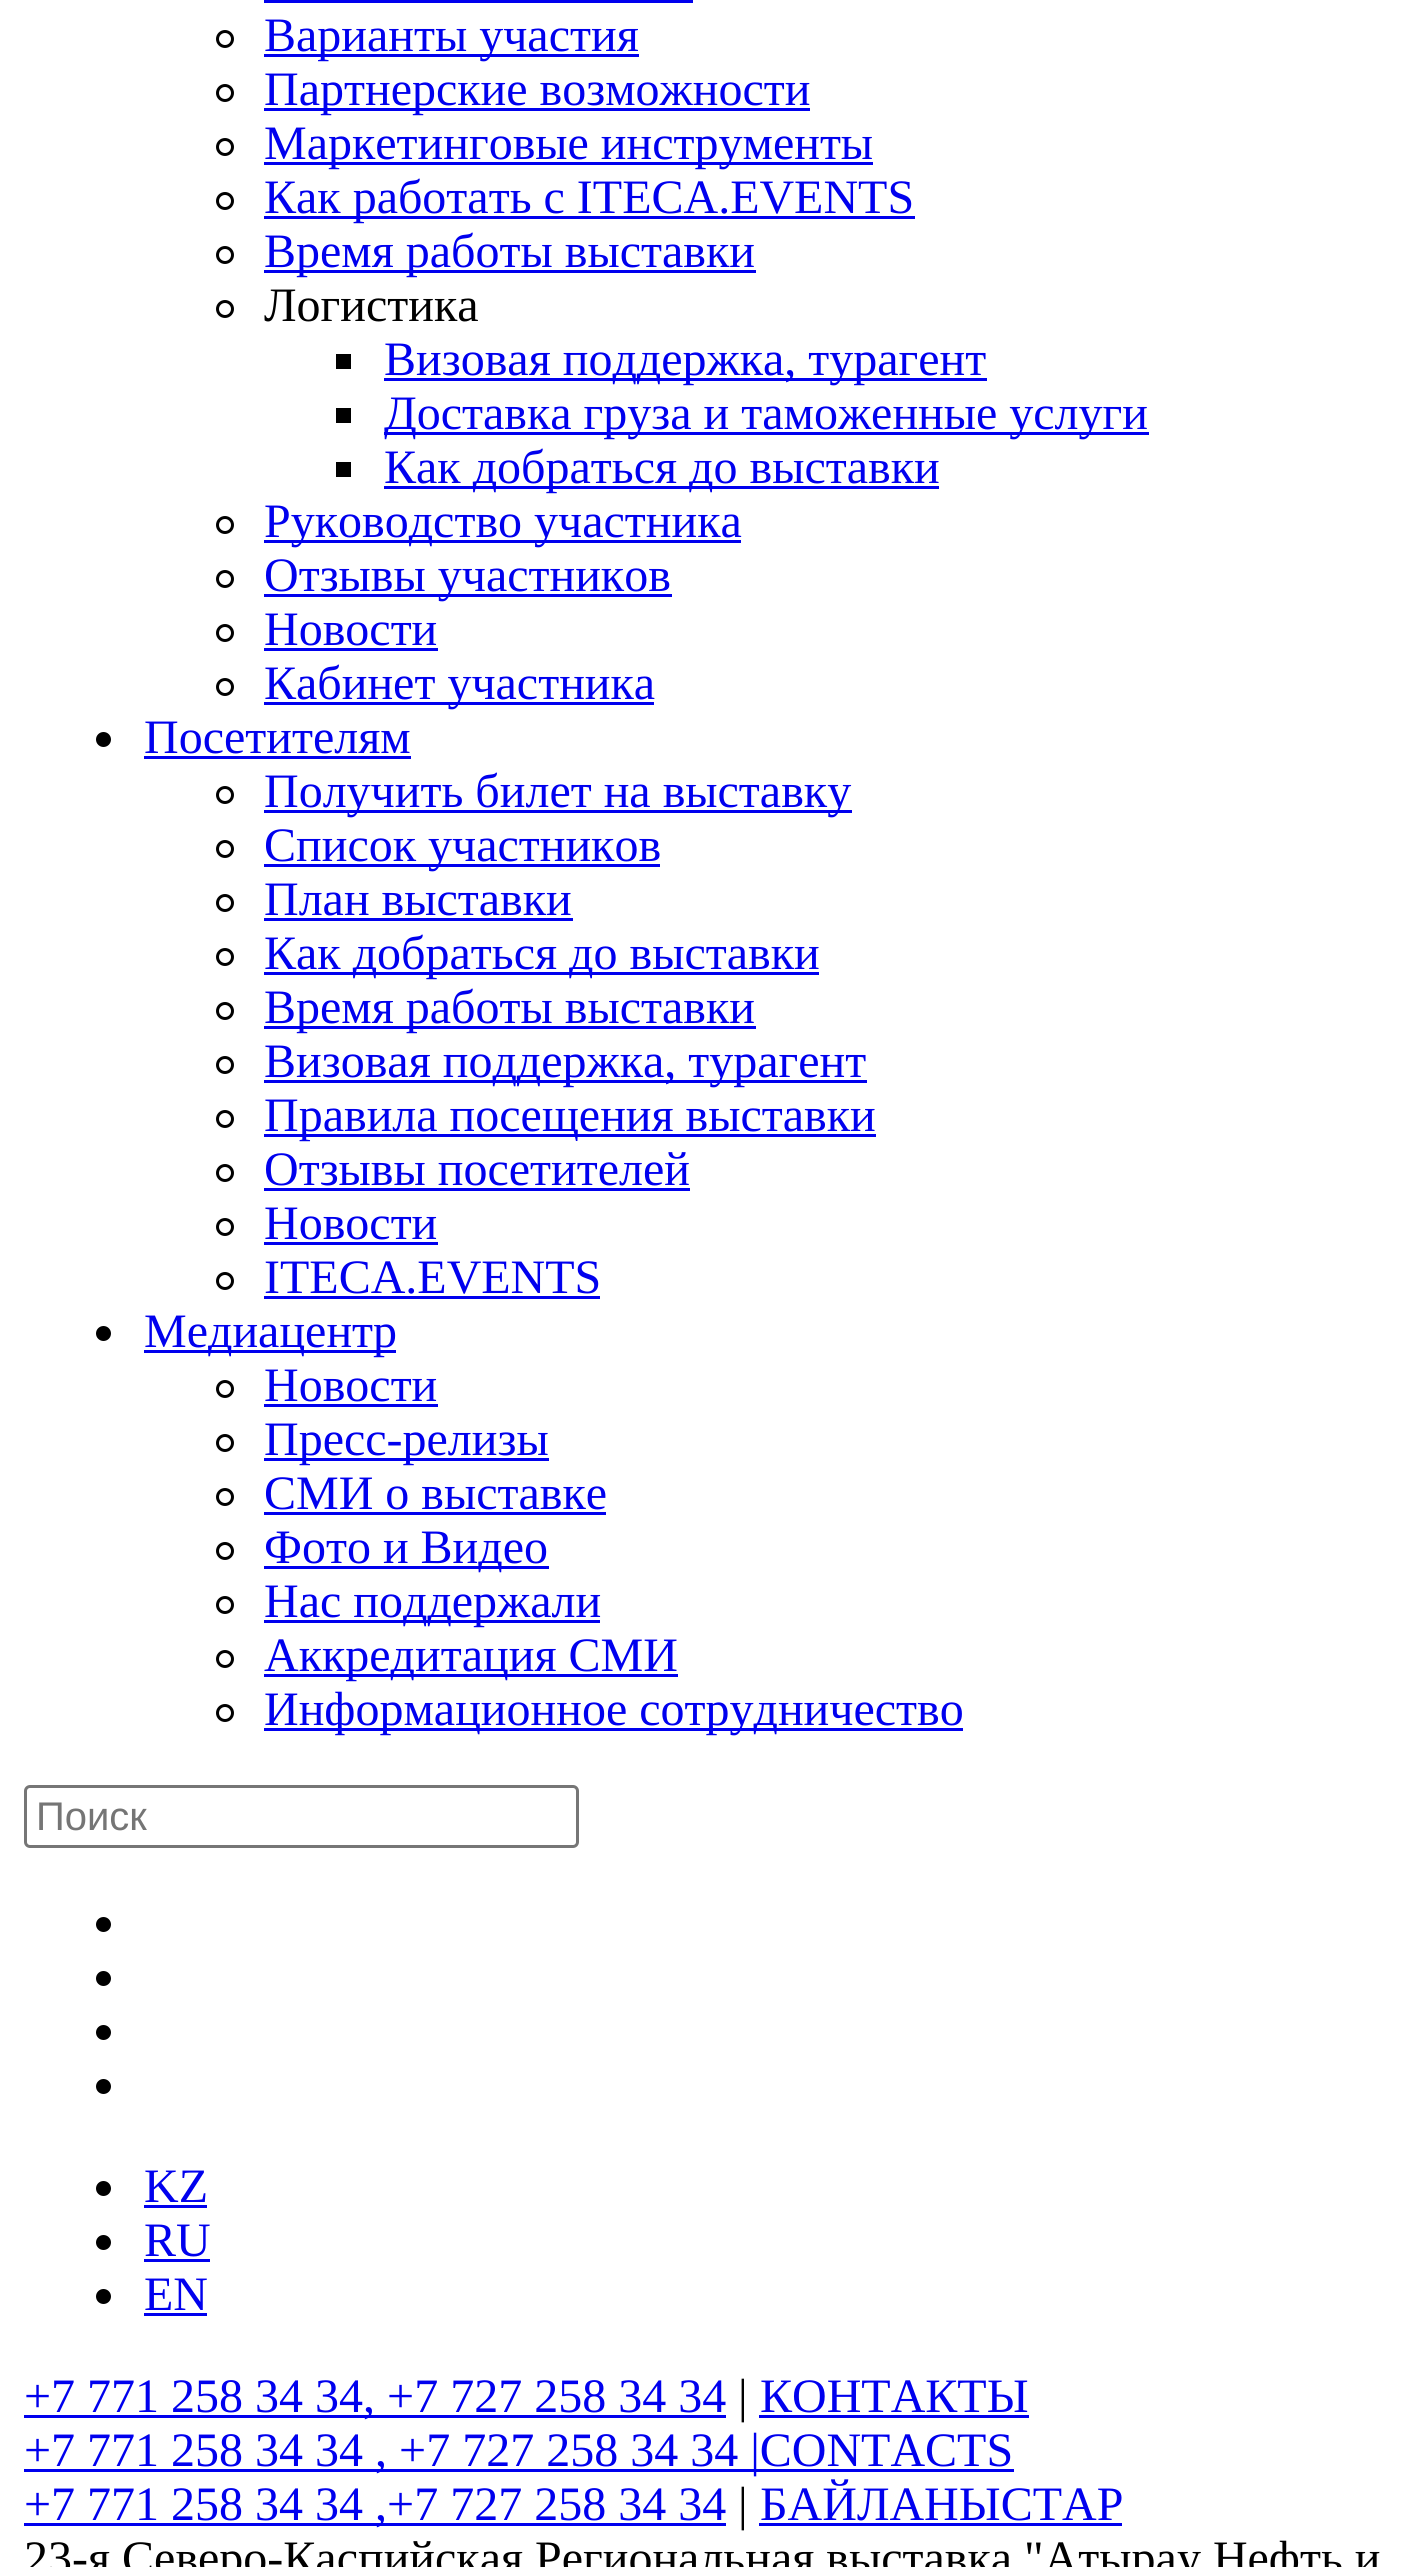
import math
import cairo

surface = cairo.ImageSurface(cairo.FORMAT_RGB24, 1422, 2567)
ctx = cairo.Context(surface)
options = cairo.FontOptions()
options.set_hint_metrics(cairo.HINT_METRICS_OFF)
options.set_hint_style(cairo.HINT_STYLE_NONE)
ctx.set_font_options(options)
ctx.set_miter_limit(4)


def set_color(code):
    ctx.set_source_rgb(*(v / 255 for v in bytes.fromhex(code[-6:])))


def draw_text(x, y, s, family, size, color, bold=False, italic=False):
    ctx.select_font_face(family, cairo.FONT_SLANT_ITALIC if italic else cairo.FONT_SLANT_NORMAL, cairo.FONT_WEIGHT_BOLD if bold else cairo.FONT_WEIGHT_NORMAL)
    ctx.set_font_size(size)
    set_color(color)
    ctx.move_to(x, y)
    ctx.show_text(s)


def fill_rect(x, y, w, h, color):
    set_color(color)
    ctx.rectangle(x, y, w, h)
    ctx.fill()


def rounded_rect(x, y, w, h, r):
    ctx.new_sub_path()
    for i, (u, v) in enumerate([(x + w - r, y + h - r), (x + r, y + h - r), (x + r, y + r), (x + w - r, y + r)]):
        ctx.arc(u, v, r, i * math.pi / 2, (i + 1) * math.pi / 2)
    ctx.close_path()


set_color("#ffffff")
ctx.paint()
fill_rect(264, 0, 429, 3, "#0000ee")
ctx.arc(225, 39, 7.5, 0, 2 * math.pi)
set_color("#000000")
ctx.set_line_width(3)
ctx.stroke()
fill_rect(264, 54, 375, 3, "#0000ee")
draw_text(264, 51, "Варианты участия", "Liberation Serif", 48, "#0000ee")
ctx.new_path()
ctx.arc(225, 93, 7.5, 0, 2 * math.pi)
set_color("#000000")
ctx.stroke()
fill_rect(264, 108, 546, 3, "#0000ee")
draw_text(264, 105, "Партнерские возможности", "Liberation Serif", 48, "#0000ee")
ctx.new_path()
ctx.arc(225, 147, 7.5, 0, 2 * math.pi)
set_color("#000000")
ctx.stroke()
fill_rect(264, 162, 609, 3, "#0000ee")
draw_text(264, 159, "Маркетинговые инструменты", "Liberation Serif", 48, "#0000ee")
ctx.new_path()
ctx.arc(225, 201, 7.5, 0, 2 * math.pi)
set_color("#000000")
ctx.stroke()
fill_rect(264, 216, 651, 3, "#0000ee")
draw_text(264, 213, "Как работать с ITECA.EVENTS", "Liberation Serif", 48, "#0000ee")
ctx.new_path()
ctx.arc(225, 255, 7.5, 0, 2 * math.pi)
set_color("#000000")
ctx.stroke()
fill_rect(264, 270, 492, 3, "#0000ee")
draw_text(264, 267, "Время работы выставки", "Liberation Serif", 48, "#0000ee")
ctx.new_path()
ctx.arc(225, 309, 7.5, 0, 2 * math.pi)
set_color("#000000")
ctx.stroke()
draw_text(264, 321, "Логистика", "Liberation Serif", 48, "#000000")
fill_rect(336, 354, 15, 15, "#000000")
fill_rect(384, 378, 603, 3, "#0000ee")
draw_text(384, 375, "Визовая поддержка, турагент", "Liberation Serif", 48, "#0000ee")
fill_rect(336, 408, 15, 15, "#000000")
fill_rect(384, 432, 765, 3, "#0000ee")
draw_text(384, 429, "Доставка груза и таможенные услуги", "Liberation Serif", 48, "#0000ee")
fill_rect(336, 462, 15, 15, "#000000")
fill_rect(384, 486, 555, 3, "#0000ee")
draw_text(384, 483, "Как добраться до выставки", "Liberation Serif", 48, "#0000ee")
ctx.new_path()
ctx.arc(225, 525, 7.5, 0, 2 * math.pi)
set_color("#000000")
ctx.stroke()
fill_rect(264, 540, 477, 3, "#0000ee")
draw_text(264, 537, "Руководство участника", "Liberation Serif", 48, "#0000ee")
ctx.new_path()
ctx.arc(225, 579, 7.5, 0, 2 * math.pi)
set_color("#000000")
ctx.stroke()
fill_rect(264, 594, 408, 3, "#0000ee")
draw_text(264, 591, "Отзывы участников", "Liberation Serif", 48, "#0000ee")
ctx.new_path()
ctx.arc(225, 633, 7.5, 0, 2 * math.pi)
set_color("#000000")
ctx.stroke()
draw_text(264, 645, "Новости", "Liberation Serif", 48, "#0000ee")
fill_rect(264, 648, 174, 3, "#0000ee")
ctx.new_path()
ctx.arc(225, 687, 7.5, 0, 2 * math.pi)
set_color("#000000")
ctx.stroke()
fill_rect(264, 702, 390, 3, "#0000ee")
draw_text(264, 699, "Кабинет участника", "Liberation Serif", 48, "#0000ee")
set_color("#000000")
ctx.new_path()
ctx.arc(103.5, 739.5, 7.5, 0, 2 * math.pi)
ctx.fill()
draw_text(144, 753, "Посетителям", "Liberation Serif", 48, "#0000ee")
fill_rect(144, 756, 267, 3, "#0000ee")
ctx.new_path()
ctx.arc(225, 795, 7.5, 0, 2 * math.pi)
set_color("#000000")
ctx.stroke()
fill_rect(264, 810, 588, 3, "#0000ee")
draw_text(264, 807, "Получить билет на выставку", "Liberation Serif", 48, "#0000ee")
ctx.new_path()
ctx.arc(225, 849, 7.5, 0, 2 * math.pi)
set_color("#000000")
ctx.stroke()
fill_rect(264, 864, 396, 3, "#0000ee")
draw_text(264, 861, "Список участников", "Liberation Serif", 48, "#0000ee")
ctx.new_path()
ctx.arc(225, 903, 7.5, 0, 2 * math.pi)
set_color("#000000")
ctx.stroke()
draw_text(264, 915, "План выставки", "Liberation Serif", 48, "#0000ee")
fill_rect(264, 918, 309, 3, "#0000ee")
ctx.new_path()
ctx.arc(225, 957, 7.5, 0, 2 * math.pi)
set_color("#000000")
ctx.stroke()
fill_rect(264, 972, 555, 3, "#0000ee")
draw_text(264, 969, "Как добраться до выставки", "Liberation Serif", 48, "#0000ee")
ctx.new_path()
ctx.arc(225, 1011, 7.5, 0, 2 * math.pi)
set_color("#000000")
ctx.stroke()
fill_rect(264, 1026, 492, 3, "#0000ee")
draw_text(264, 1023, "Время работы выставки", "Liberation Serif", 48, "#0000ee")
ctx.new_path()
ctx.arc(225, 1065, 7.5, 0, 2 * math.pi)
set_color("#000000")
ctx.stroke()
fill_rect(264, 1080, 603, 3, "#0000ee")
draw_text(264, 1077, "Визовая поддержка, турагент", "Liberation Serif", 48, "#0000ee")
ctx.new_path()
ctx.arc(225, 1119, 7.5, 0, 2 * math.pi)
set_color("#000000")
ctx.stroke()
fill_rect(264, 1134, 612, 3, "#0000ee")
draw_text(264, 1131, "Правила посещения выставки", "Liberation Serif", 48, "#0000ee")
ctx.new_path()
ctx.arc(225, 1173, 7.5, 0, 2 * math.pi)
set_color("#000000")
ctx.stroke()
draw_text(264, 1185, "Отзывы посетителей", "Liberation Serif", 48, "#0000ee")
fill_rect(264, 1188, 426, 3, "#0000ee")
ctx.new_path()
ctx.arc(225, 1227, 7.5, 0, 2 * math.pi)
set_color("#000000")
ctx.stroke()
draw_text(264, 1239, "Новости", "Liberation Serif", 48, "#0000ee")
fill_rect(264, 1242, 174, 3, "#0000ee")
ctx.new_path()
ctx.arc(225, 1281, 7.5, 0, 2 * math.pi)
set_color("#000000")
ctx.stroke()
draw_text(264, 1293, "ITECA.EVENTS", "Liberation Serif", 48, "#0000ee")
fill_rect(264, 1296, 336, 3, "#0000ee")
set_color("#000000")
ctx.new_path()
ctx.arc(103.5, 1333.5, 7.5, 0, 2 * math.pi)
ctx.fill()
fill_rect(144, 1350, 252, 3, "#0000ee")
draw_text(144, 1347, "Медиацентр", "Liberation Serif", 48, "#0000ee")
ctx.new_path()
ctx.arc(225, 1389, 7.5, 0, 2 * math.pi)
set_color("#000000")
ctx.stroke()
draw_text(264, 1401, "Новости", "Liberation Serif", 48, "#0000ee")
fill_rect(264, 1404, 174, 3, "#0000ee")
ctx.new_path()
ctx.arc(225, 1443, 7.5, 0, 2 * math.pi)
set_color("#000000")
ctx.stroke()
fill_rect(264, 1458, 285, 3, "#0000ee")
draw_text(264, 1455, "Пресс-релизы", "Liberation Serif", 48, "#0000ee")
ctx.new_path()
ctx.arc(225, 1497, 7.5, 0, 2 * math.pi)
set_color("#000000")
ctx.stroke()
draw_text(264, 1509, "СМИ о выставке", "Liberation Serif", 48, "#0000ee")
fill_rect(264, 1512, 342, 3, "#0000ee")
ctx.new_path()
ctx.arc(225, 1551, 7.5, 0, 2 * math.pi)
set_color("#000000")
ctx.stroke()
fill_rect(264, 1566, 285, 3, "#0000ee")
draw_text(264, 1563, "Фото и Видео", "Liberation Serif", 48, "#0000ee")
ctx.new_path()
ctx.arc(225, 1605, 7.5, 0, 2 * math.pi)
set_color("#000000")
ctx.stroke()
fill_rect(264, 1620, 336, 3, "#0000ee")
draw_text(264, 1617, "Нас поддержали", "Liberation Serif", 48, "#0000ee")
ctx.new_path()
ctx.arc(225, 1659, 7.5, 0, 2 * math.pi)
set_color("#000000")
ctx.stroke()
fill_rect(264, 1674, 414, 3, "#0000ee")
draw_text(264, 1671, "Аккредитация СМИ", "Liberation Serif", 48, "#0000ee")
ctx.new_path()
ctx.arc(225, 1713, 7.5, 0, 2 * math.pi)
set_color("#000000")
ctx.stroke()
fill_rect(264, 1728, 699, 3, "#0000ee")
draw_text(264, 1725, "Информационное сотрудничество", "Liberation Serif", 48, "#0000ee")
rounded_rect(25.5, 1786.5, 552, 60, 4.5)
set_color("#767676")
ctx.stroke()
draw_text(36, 1830, "Поиск", "Liberation Sans", 40, "#757575")
set_color("#000000")
ctx.new_path()
ctx.arc(103.5, 1924.5, 7.5, 0, 2 * math.pi)
ctx.fill()
ctx.arc(103.5, 1978.5, 7.5, 0, 2 * math.pi)
ctx.fill()
ctx.arc(103.5, 2032.5, 7.5, 0, 2 * math.pi)
ctx.fill()
ctx.arc(103.5, 2086.5, 7.5, 0, 2 * math.pi)
ctx.fill()
ctx.arc(103.5, 2188.5, 7.5, 0, 2 * math.pi)
ctx.fill()
draw_text(144, 2202, "KZ", "Liberation Serif", 48, "#0000ee")
fill_rect(144, 2205, 63, 3, "#0000ee")
set_color("#000000")
ctx.new_path()
ctx.arc(103.5, 2242.5, 7.5, 0, 2 * math.pi)
ctx.fill()
draw_text(144, 2256, "RU", "Liberation Serif", 48, "#0000ee")
fill_rect(144, 2259, 66, 3, "#0000ee")
set_color("#000000")
ctx.new_path()
ctx.arc(103.5, 2296.5, 7.5, 0, 2 * math.pi)
ctx.fill()
draw_text(144, 2310, "EN", "Liberation Serif", 48, "#0000ee")
fill_rect(144, 2313, 63, 3, "#0000ee")
fill_rect(24, 2415, 702, 3, "#0000ee")
draw_text(24, 2412, "+7 771 258 34 34, +7 727 258 34 34", "Liberation Serif", 48, "#0000ee")
draw_text(738, 2412, "|", "Liberation Serif", 48, "#000000")
draw_text(760, 2412, "КОНТАКТЫ", "Liberation Serif", 48, "#0000ee")
fill_rect(759, 2415, 270, 3, "#0000ee")
fill_rect(24, 2469, 990, 3, "#0000ee")
draw_text(24, 2466, "+7 771 258 34 34 , +7 727 258 34 34 |CONTACTS", "Liberation Serif", 48, "#0000ee")
fill_rect(24, 2523, 702, 3, "#0000ee")
draw_text(24, 2520, "+7 771 258 34 34 ,+7 727 258 34 34", "Liberation Serif", 48, "#0000ee")
draw_text(738, 2520, "|", "Liberation Serif", 48, "#000000")
draw_text(760, 2520, "БАЙЛАНЫСТАР", "Liberation Serif", 48, "#0000ee")
fill_rect(759, 2523, 363, 3, "#0000ee")
draw_text(24, 2574, "23-я Северо-Каспийская Региональная выставка \"Атырау Нефть и", "Liberation Serif", 48, "#000000")
surface.write_to_png("output.png")
